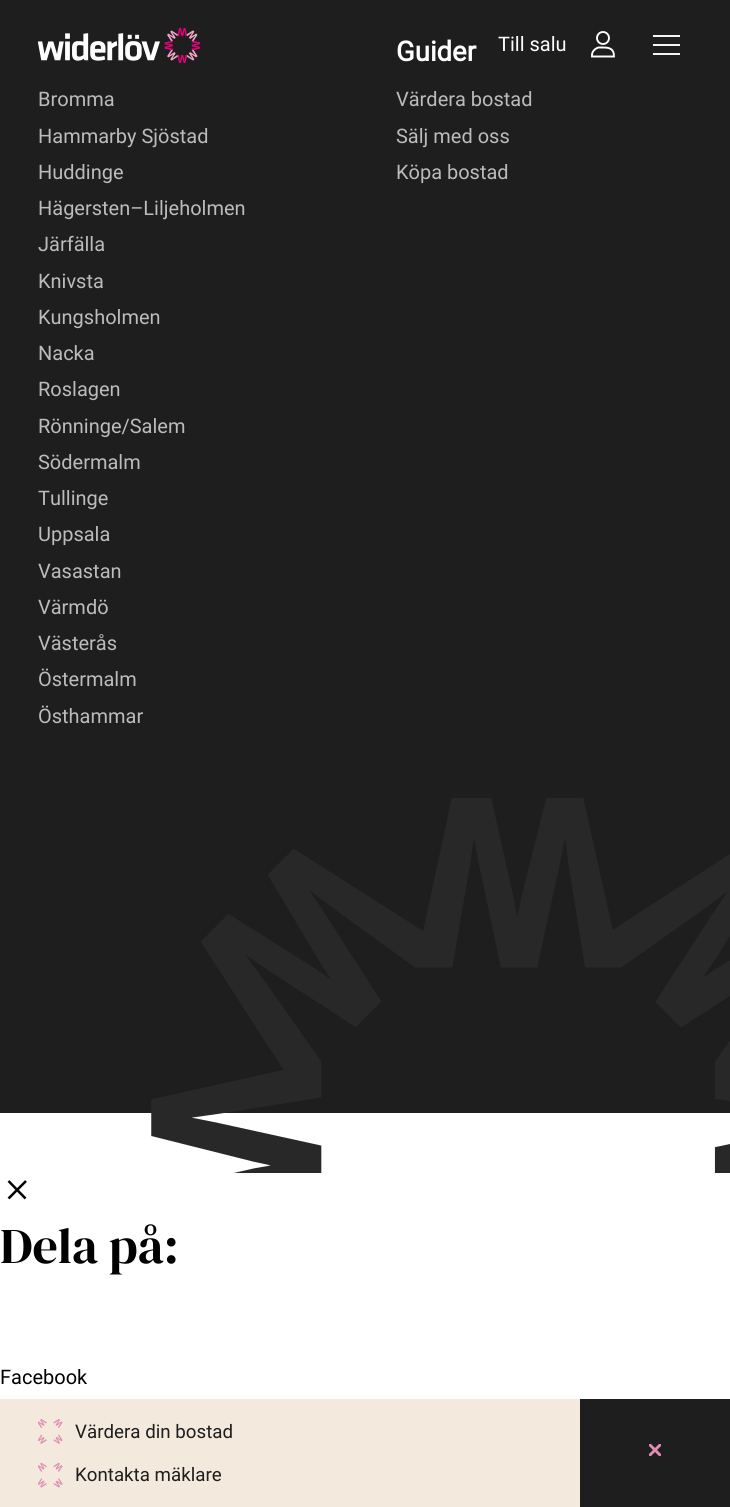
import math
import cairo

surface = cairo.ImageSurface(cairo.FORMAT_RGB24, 730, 1507)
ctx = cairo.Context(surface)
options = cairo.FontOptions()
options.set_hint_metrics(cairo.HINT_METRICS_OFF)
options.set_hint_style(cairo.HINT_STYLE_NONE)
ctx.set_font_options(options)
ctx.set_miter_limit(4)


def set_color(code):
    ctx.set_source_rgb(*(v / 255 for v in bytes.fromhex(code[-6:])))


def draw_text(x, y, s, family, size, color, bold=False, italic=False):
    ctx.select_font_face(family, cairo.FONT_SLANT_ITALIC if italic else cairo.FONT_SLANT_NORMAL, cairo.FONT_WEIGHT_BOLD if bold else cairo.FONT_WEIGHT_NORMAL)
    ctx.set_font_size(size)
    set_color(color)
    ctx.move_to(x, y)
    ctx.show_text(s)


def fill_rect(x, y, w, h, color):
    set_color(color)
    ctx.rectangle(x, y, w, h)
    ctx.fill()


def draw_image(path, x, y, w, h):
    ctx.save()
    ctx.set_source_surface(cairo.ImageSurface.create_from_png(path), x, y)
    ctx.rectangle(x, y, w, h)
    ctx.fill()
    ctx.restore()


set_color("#ffffff")
ctx.paint()
fill_rect(0, 0, 730, 1113, "#1e1e1e")
draw_image("assets/img1.png", 38, 28, 162, 35)
draw_text(498, 51, "Till salu", "Roboto", 20, "#ffffff")
ctx.new_path()
ctx.arc(603, 38, 6, 0, 2 * math.pi)
ctx.set_line_width(1.9)
ctx.stroke()
ctx.new_path()
ctx.move_to(592, 55)
ctx.curve_to(592, 51.5, 595, 48.5, 598.5, 47.5)
ctx.line_to(603, 47.5)
ctx.curve_to(610, 47.5, 614, 49, 614, 56.5)
ctx.line_to(592, 56.5)
ctx.close_path()
ctx.stroke()
fill_rect(653, 35, 27, 2, "#f4f4f4")
fill_rect(653, 44, 27, 2, "#f4f4f4")
fill_rect(653, 53, 27, 2, "#f4f4f4")
draw_text(38, 106, "Bromma", "Roboto", 20, "#bcbcbc")
draw_text(38, 143, "Hammarby Sjöstad", "Roboto", 20, "#bcbcbc")
draw_text(38, 179, "Huddinge", "Roboto", 20, "#bcbcbc")
draw_text(38, 215, "Hägersten–Liljeholmen", "Roboto", 20, "#bcbcbc")
draw_text(38, 251, "Järfälla", "Roboto", 20, "#bcbcbc")
draw_text(38, 288, "Knivsta", "Roboto", 20, "#bcbcbc")
draw_text(38, 324, "Kungsholmen", "Roboto", 20, "#bcbcbc")
draw_text(38, 360, "Nacka", "Roboto", 20, "#bcbcbc")
draw_text(38, 396, "Roslagen", "Roboto", 20, "#bcbcbc")
draw_text(38, 433, "Rönninge/Salem", "Roboto", 20, "#bcbcbc")
draw_text(38, 469, "Södermalm", "Roboto", 20, "#bcbcbc")
draw_text(38, 505, "Tullinge", "Roboto", 20, "#bcbcbc")
draw_text(38, 541, "Uppsala", "Roboto", 20, "#bcbcbc")
draw_text(38, 578, "Vasastan", "Roboto", 20, "#bcbcbc")
draw_text(38, 614, "Värmdö", "Roboto", 20, "#bcbcbc")
draw_text(38, 650, "Västerås", "Roboto", 20, "#bcbcbc")
draw_text(38, 686, "Östermalm", "Roboto", 20, "#bcbcbc")
draw_text(38, 723, "Östhammar", "Roboto", 20, "#bcbcbc")
draw_text(396, 61, "Guider", "Roboto", 27.5, "#ffffff", bold=True)
draw_text(396, 106, "Värdera bostad", "Roboto", 20, "#bcbcbc")
draw_text(396, 143, "Sälj med oss", "Roboto", 20, "#bcbcbc")
draw_text(396, 179, "Köpa bostad", "Roboto", 20, "#bcbcbc")
draw_image("assets/img2.png", 151, 798, 579, 375)
ctx.new_path()
ctx.move_to(8.5, 1181)
ctx.line_to(25.5, 1198.5)
ctx.move_to(8.5, 1198.5)
ctx.line_to(26, 1181)
set_color("#000000")
ctx.set_line_width(2.5)
ctx.stroke()
draw_text(0, 1263, "Dela på:", "DM Serif Display", 50, "#000000")
draw_text(0, 1384, "Facebook", "Roboto", 20, "#000000")
fill_rect(0, 1399, 580, 108, "#f3e9dd")
draw_image("assets/img3.png", 38, 1419, 25, 25)
draw_text(75, 1438, "Värdera din bostad", "Roboto", 18.75, "#1e1e1e")
draw_image("assets/img4.png", 38, 1463, 25, 25)
draw_text(75, 1481, "Kontakta mäklare", "Roboto", 18.75, "#1e1e1e")
fill_rect(580, 1399, 150, 108, "#1e1e1e")
draw_image("assets/img5.png", 649, 1444, 12, 12)
surface.write_to_png("output.png")
